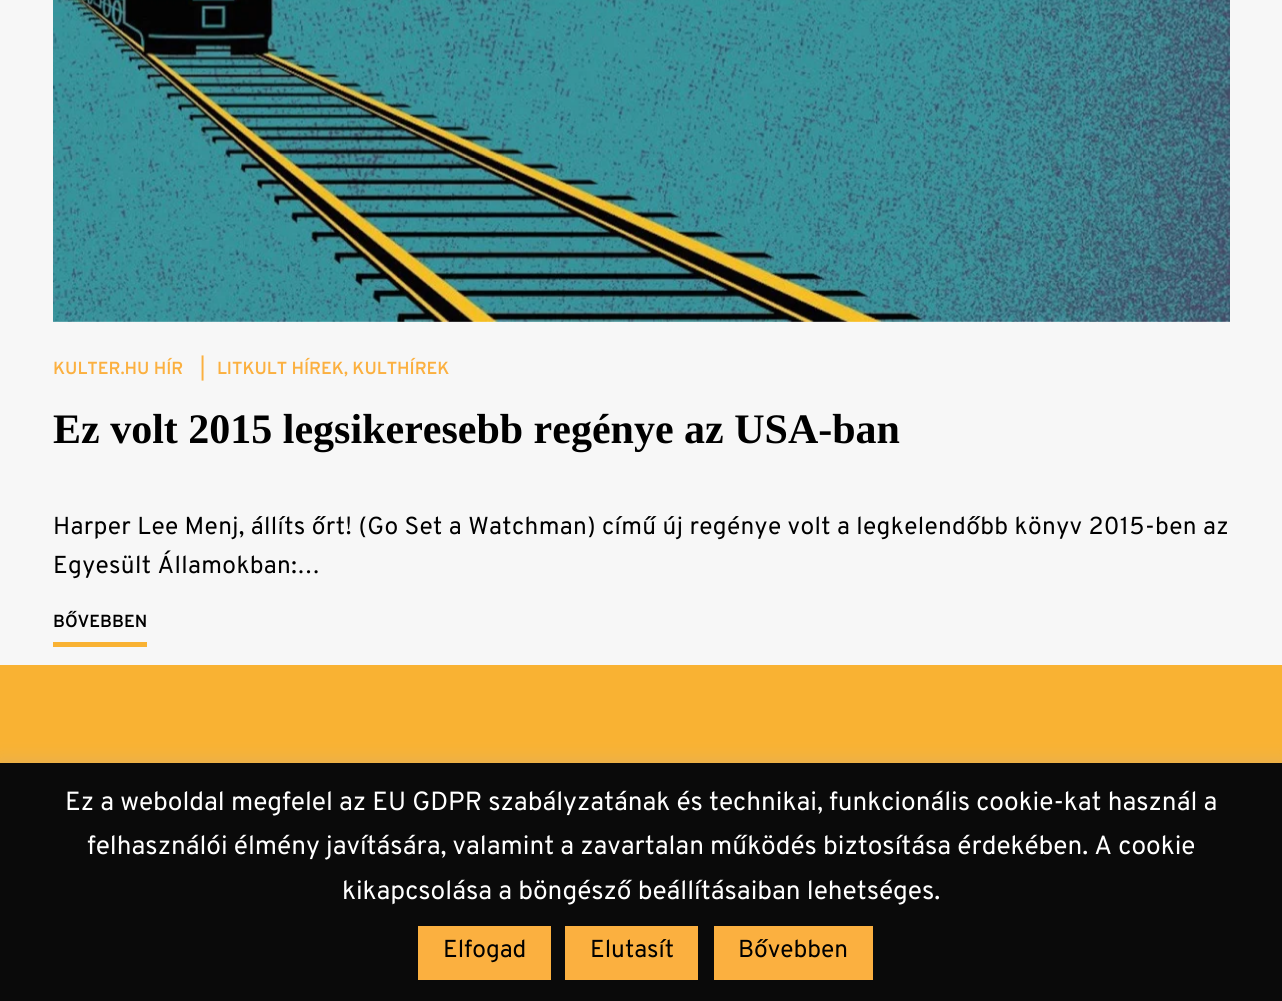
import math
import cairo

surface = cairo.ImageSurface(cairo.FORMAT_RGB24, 1282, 1001)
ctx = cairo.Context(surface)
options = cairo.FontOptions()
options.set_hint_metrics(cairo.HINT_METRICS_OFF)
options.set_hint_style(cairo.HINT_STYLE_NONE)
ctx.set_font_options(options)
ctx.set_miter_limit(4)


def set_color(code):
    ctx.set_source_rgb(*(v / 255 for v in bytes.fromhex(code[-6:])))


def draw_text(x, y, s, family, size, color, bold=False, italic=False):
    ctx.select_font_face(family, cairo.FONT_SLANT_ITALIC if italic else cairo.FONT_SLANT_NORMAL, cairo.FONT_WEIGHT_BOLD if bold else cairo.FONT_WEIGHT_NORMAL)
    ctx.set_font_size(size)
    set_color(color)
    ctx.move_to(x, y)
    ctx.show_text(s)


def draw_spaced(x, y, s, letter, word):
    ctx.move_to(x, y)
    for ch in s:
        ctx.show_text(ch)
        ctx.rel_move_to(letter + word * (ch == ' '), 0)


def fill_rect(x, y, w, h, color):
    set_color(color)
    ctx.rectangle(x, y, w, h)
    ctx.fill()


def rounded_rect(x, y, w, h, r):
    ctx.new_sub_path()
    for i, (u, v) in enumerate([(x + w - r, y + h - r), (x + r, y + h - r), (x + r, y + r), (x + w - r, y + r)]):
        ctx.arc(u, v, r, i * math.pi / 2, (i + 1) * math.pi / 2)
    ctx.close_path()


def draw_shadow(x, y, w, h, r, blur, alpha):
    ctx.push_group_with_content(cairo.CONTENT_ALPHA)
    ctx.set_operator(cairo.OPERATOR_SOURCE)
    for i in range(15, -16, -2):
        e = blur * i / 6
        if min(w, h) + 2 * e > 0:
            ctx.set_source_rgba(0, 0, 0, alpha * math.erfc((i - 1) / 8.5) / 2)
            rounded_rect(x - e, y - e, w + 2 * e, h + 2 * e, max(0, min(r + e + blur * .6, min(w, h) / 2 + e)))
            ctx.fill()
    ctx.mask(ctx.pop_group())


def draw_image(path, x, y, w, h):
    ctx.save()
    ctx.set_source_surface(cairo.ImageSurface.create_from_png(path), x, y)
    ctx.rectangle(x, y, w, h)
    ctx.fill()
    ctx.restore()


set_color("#f7f7f7")
ctx.paint()
draw_image("assets/img1.png", 53, 0, 1177, 322)
draw_text(53, 374, "KULTER.HU HÍR", "Overpass SemiBold", 17.5, "#fbb040")
draw_text(200, 374, "|", "Overpass SemiBold", 17.5, "#fbb040")
draw_text(217, 374, "LITKULT HÍREK, KULTHÍREK", "Overpass SemiBold", 17.5, "#fbb040")
draw_text(53, 443, "Ez volt 2015 legsikeresebb regénye az USA-ban", "Liberation Serif", 42, "#000000", bold=True)
ctx.select_font_face("Overpass")
ctx.set_font_size(24.5)
draw_spaced(53, 534, "Harper Lee Menj, állíts őrt! (Go Set a Watchman) című új regénye volt a legkelendőbb könyv 2015-ben az", 0.35, 0)
draw_spaced(53, 573, "Egyesült Államokban:…", 0.35, 0)
fill_rect(53, 642, 94, 5, "#f9b233")
draw_text(53, 627, "BŐVEBBEN", "Overpass SemiBold", 17.5, "#000000")
fill_rect(0, 665, 1282, 98, "#f9b233")
set_color("#acabab")
draw_shadow(0, 761, 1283, 238, 0, 9, 0.3)
fill_rect(0, 763, 1282, 238, "#0a0a0a")
draw_text(65, 810, "Ez a weboldal megfelel az EU GDPR szabályzatának és technikai, funkcionális cookie-kat használ a", "Overpass", 26.25, "#ffffff")
draw_text(87, 854, "felhasználói élmény javítására, valamint a zavartalan működés biztosítása érdekében. A cookie", "Overpass", 26.25, "#ffffff")
draw_text(342, 899, "kikapcsolása a böngésző beállításaiban lehetséges.", "Overpass", 26.25, "#ffffff")
fill_rect(418, 926, 133, 54, "#fbb040")
draw_text(443, 957, "Elfogad", "Overpass", 24.5, "#000000")
fill_rect(565, 926, 133, 54, "#fbb040")
draw_text(590, 957, "Elutasít", "Overpass", 24.5, "#000000")
fill_rect(714, 926, 159, 54, "#fbb040")
draw_text(738, 957, "Bővebben", "Overpass", 24.5, "#000000")
surface.write_to_png("output.png")
